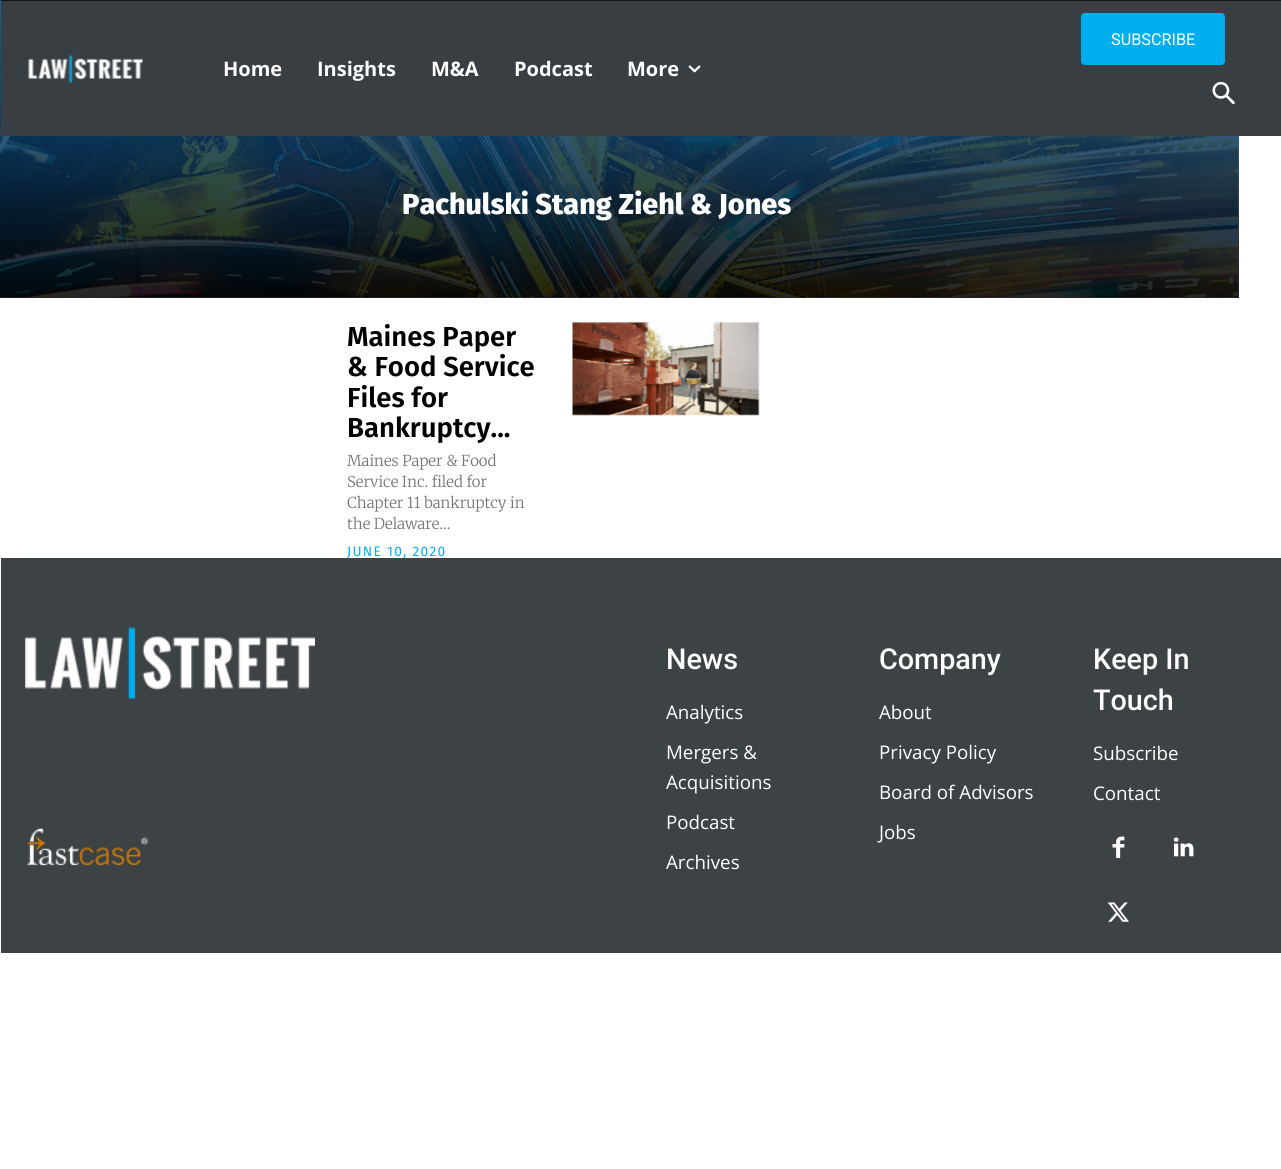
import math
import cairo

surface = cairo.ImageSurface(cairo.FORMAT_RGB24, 1281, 1169)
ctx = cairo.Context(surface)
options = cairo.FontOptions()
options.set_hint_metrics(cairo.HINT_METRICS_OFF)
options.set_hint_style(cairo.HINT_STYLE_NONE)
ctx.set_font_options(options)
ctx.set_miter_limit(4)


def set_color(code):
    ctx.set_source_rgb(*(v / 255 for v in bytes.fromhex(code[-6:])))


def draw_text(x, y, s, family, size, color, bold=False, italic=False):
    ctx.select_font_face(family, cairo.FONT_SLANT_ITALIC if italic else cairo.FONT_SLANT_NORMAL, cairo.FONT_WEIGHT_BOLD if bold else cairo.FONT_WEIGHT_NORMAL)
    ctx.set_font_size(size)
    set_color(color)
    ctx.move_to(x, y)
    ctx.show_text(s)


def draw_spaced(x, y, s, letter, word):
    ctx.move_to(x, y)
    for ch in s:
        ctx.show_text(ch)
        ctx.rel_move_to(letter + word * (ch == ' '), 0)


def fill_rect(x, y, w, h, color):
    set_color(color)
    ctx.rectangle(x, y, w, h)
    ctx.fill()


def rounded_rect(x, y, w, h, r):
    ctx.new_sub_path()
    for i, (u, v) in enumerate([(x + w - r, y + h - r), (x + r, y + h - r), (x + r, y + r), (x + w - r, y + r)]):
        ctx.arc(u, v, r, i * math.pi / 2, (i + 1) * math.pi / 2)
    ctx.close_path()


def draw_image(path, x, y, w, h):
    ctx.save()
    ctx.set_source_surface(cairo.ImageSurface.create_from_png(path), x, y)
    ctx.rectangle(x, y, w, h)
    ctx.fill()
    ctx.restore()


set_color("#ffffff")
ctx.paint()
fill_rect(0, 136, 1239, 162, "#f9f9f9")
draw_image("assets/img4.png", 0, 0, 1238, 298)
gradient = cairo.LinearGradient(598, -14, 598, 298)
gradient.add_color_stop_rgba(0, 0.086, 0.439, 0.749, 0.85)
gradient.add_color_stop_rgba(1, 0, 0, 0, 0.85)
ctx.set_source(gradient)
ctx.rectangle(0, 0, 1239, 298)
ctx.fill()
fill_rect(1, 0, 1280, 1, "#141414")
fill_rect(1, 1, 1280, 135, "#383e42")
set_color("#00aeef")
rounded_rect(1081, 13, 144, 52, 4)
ctx.fill()
draw_text(1111, 45, "SUBSCRIBE", "Roboto", 16.25, "#ffffff")
draw_image("assets/img1.png", 1212, 81, 23, 24)
draw_image("assets/img2.png", 28, 54, 115, 29)
draw_text(223, 76, "Home", "Open Sans", 20, "#ffffff", bold=True)
draw_text(317, 76, "Insights", "Open Sans", 20, "#ffffff", bold=True)
draw_text(431, 76, "M&A", "Open Sans", 20, "#ffffff", bold=True)
draw_text(514, 76, "Podcast", "Open Sans", 20, "#ffffff", bold=True)
draw_text(627, 76, "More", "Open Sans", 20, "#ffffff", bold=True)
draw_image("assets/img3.png", 688, 65, 13, 8)
draw_text(402, 214, "Pachulski Stang Ziehl & Jones", "Fira Sans ExtraBold", 28.75, "#ffffff")
draw_text(347, 346, "Maines Paper", "Fira Sans SemiBold", 27.5, "#000000")
draw_text(347, 376, "& Food Service", "Fira Sans SemiBold", 27.5, "#000000")
draw_text(347, 407, "Files for", "Fira Sans SemiBold", 27.5, "#000000")
draw_text(347, 437, "Bankruptcy...", "Fira Sans SemiBold", 27.5, "#000000")
draw_text(347, 466, "Maines Paper & Food", "Merriweather Light", 15, "#767676")
draw_text(347, 487, "Service Inc. filed for", "Merriweather Light", 15, "#767676")
draw_text(347, 508, "Chapter 11 bankruptcy in", "Merriweather Light", 15, "#767676")
draw_text(347, 529, "the Delaware...", "Merriweather Light", 15, "#767676")
ctx.select_font_face("Fira Sans")
ctx.set_font_size(13.75)
set_color("#00aeff")
draw_spaced(347, 556, "JUNE 10, 2020", 1.25, 0)
draw_image("assets/img5.png", 572, 322, 188, 94)
fill_rect(1, 558, 1280, 395, "#3d4245")
draw_image("assets/img6.png", 25, 627, 290, 72)
draw_image("assets/img7.png", 27, 828, 121, 38)
draw_text(666, 669, "News", "Roboto Medium", 28.75, "#ffffff")
draw_text(666, 719, "Analytics", "Open Sans", 18.75, "#ffffff")
draw_text(666, 759, "Mergers &", "Open Sans", 18.75, "#ffffff")
draw_text(666, 789, "Acquisitions", "Open Sans", 18.75, "#ffffff")
draw_text(666, 829, "Podcast", "Open Sans", 18.75, "#ffffff")
draw_text(666, 869, "Archives", "Open Sans", 18.75, "#ffffff")
draw_text(879, 669, "Company", "Roboto Medium", 28.75, "#ffffff")
draw_text(879, 719, "About", "Open Sans", 18.75, "#ffffff")
draw_text(879, 759, "Privacy Policy", "Open Sans", 18.75, "#ffffff")
draw_text(879, 799, "Board of Advisors", "Open Sans", 18.75, "#ffffff")
draw_text(879, 839, "Jobs", "Open Sans", 18.75, "#ffffff")
draw_text(1093, 669, "Keep In", "Roboto Medium", 28.75, "#ffffff")
draw_text(1093, 710, "Touch", "Roboto Medium", 28.75, "#ffffff")
draw_text(1093, 760, "Subscribe", "Open Sans", 18.75, "#ffffff")
draw_text(1093, 800, "Contact", "Open Sans", 18.75, "#ffffff")
draw_image("assets/img8.png", 1112, 836, 13, 22)
draw_image("assets/img9.png", 1173, 837, 21, 20)
draw_image("assets/img10.png", 1107, 902, 22, 20)
surface.write_to_png("output.png")
